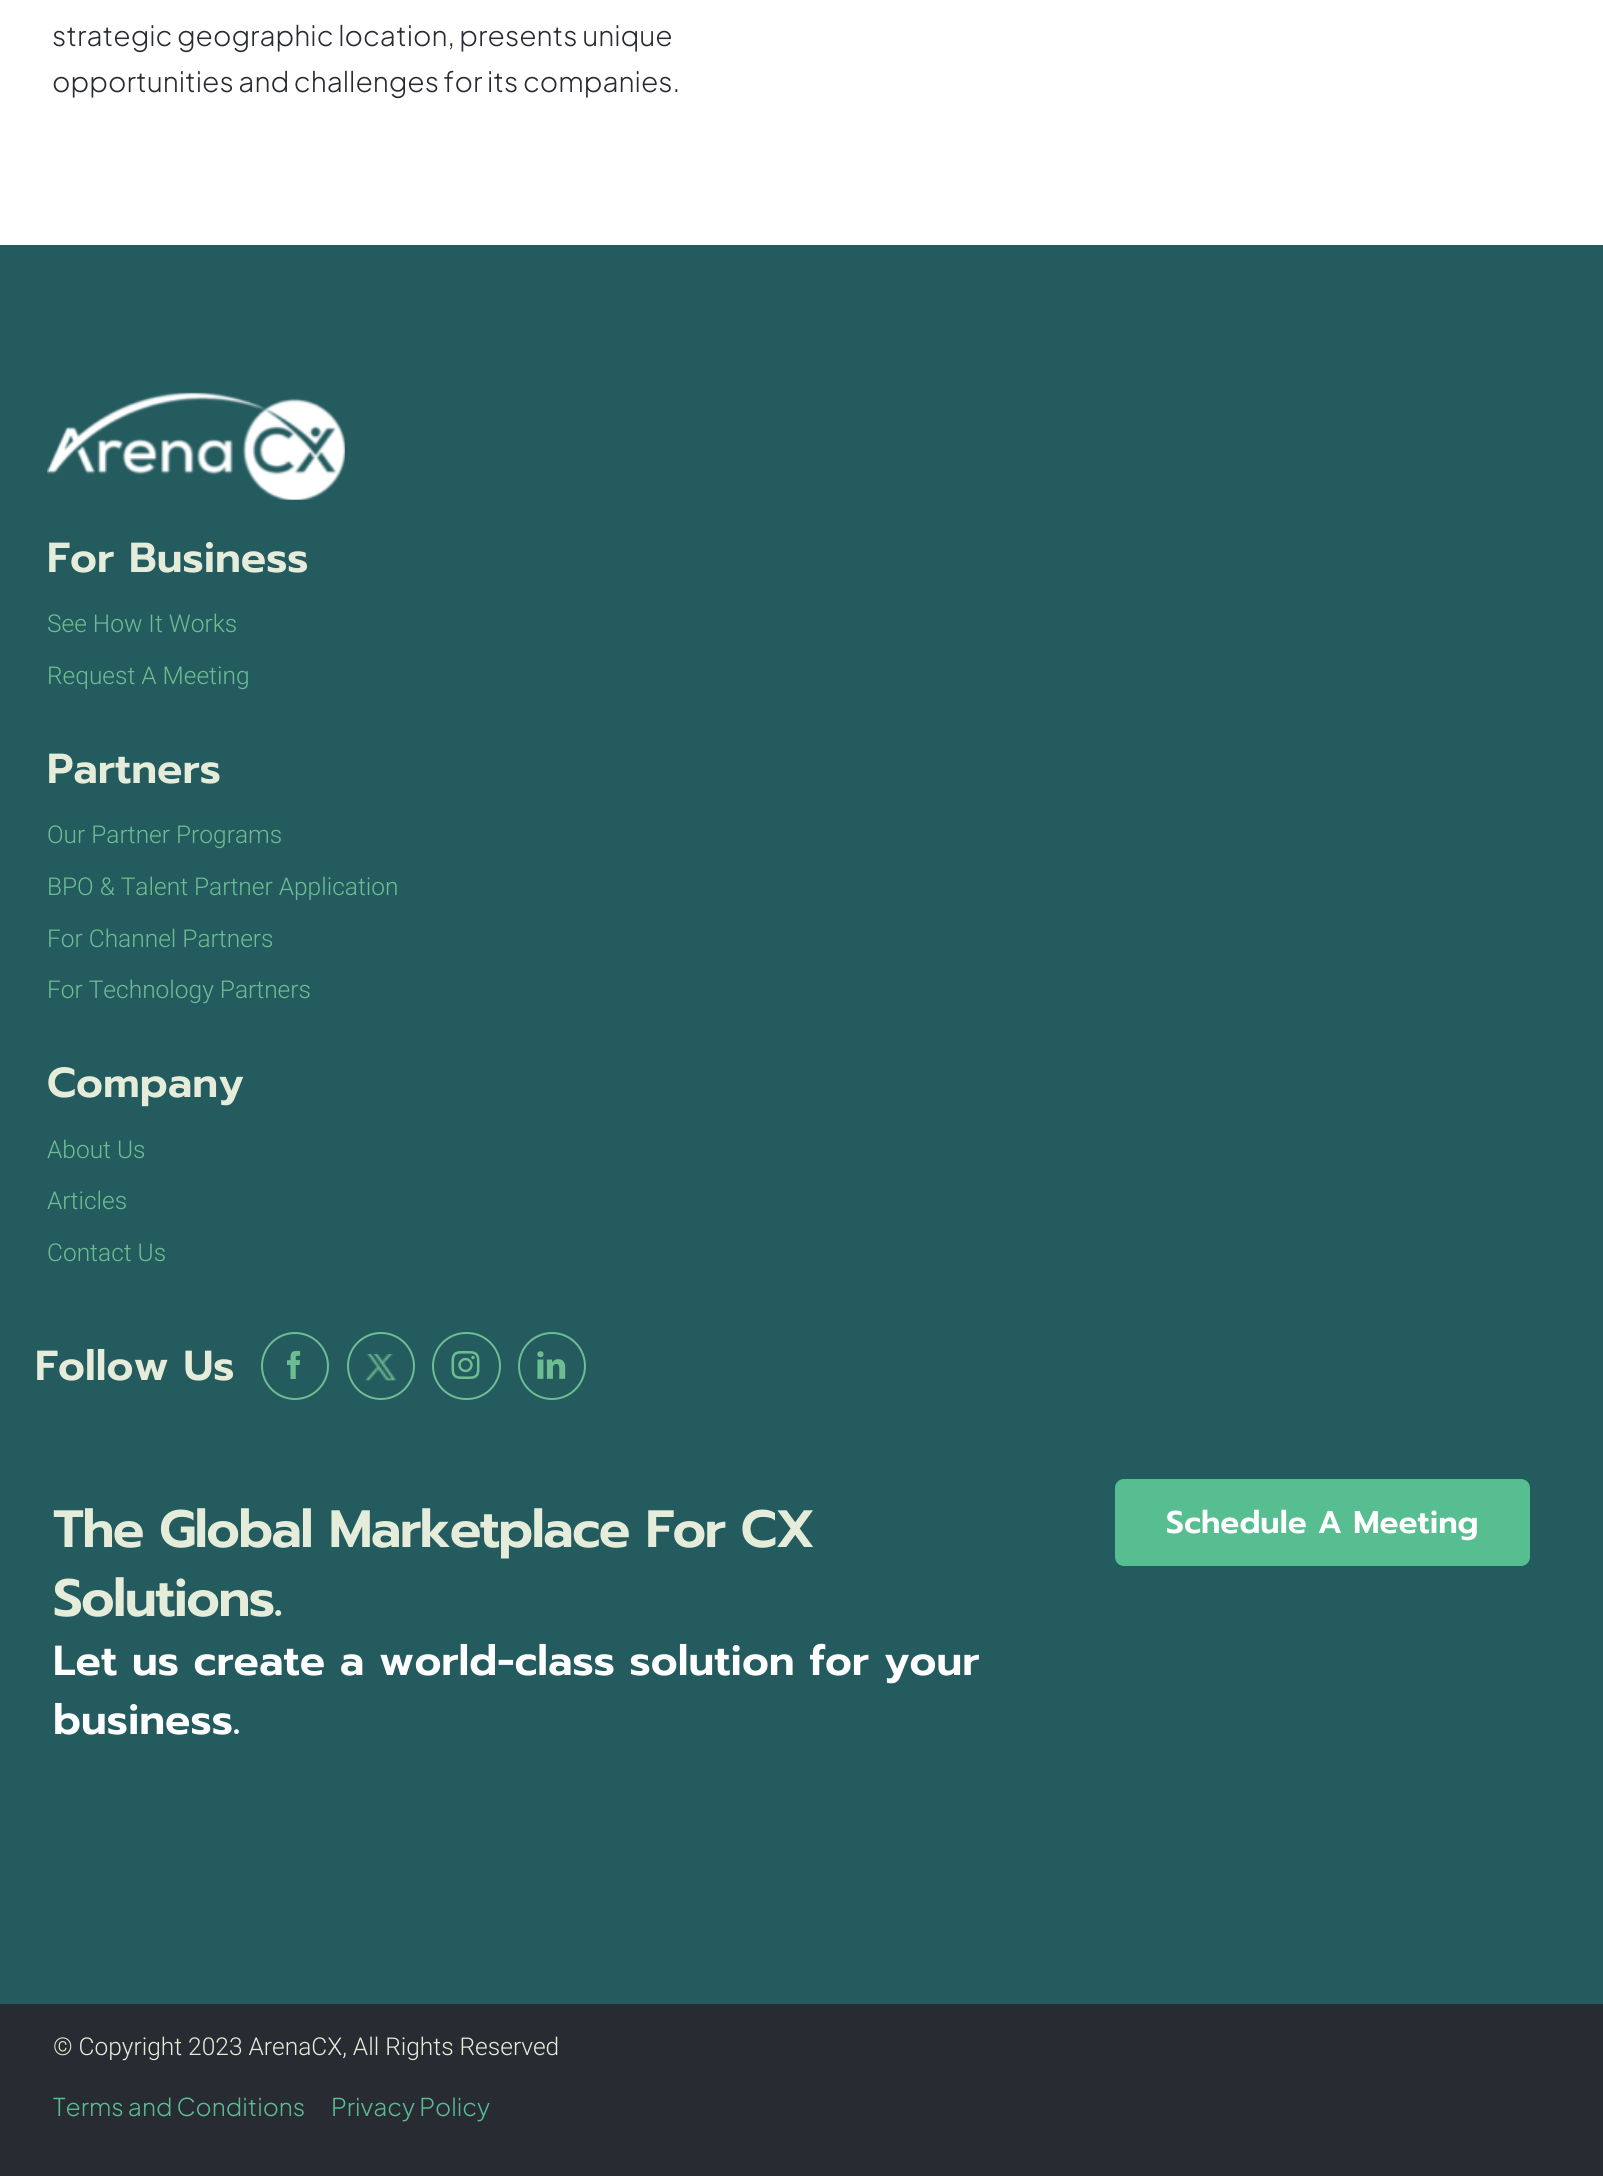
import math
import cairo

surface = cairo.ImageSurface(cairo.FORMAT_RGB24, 1603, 2176)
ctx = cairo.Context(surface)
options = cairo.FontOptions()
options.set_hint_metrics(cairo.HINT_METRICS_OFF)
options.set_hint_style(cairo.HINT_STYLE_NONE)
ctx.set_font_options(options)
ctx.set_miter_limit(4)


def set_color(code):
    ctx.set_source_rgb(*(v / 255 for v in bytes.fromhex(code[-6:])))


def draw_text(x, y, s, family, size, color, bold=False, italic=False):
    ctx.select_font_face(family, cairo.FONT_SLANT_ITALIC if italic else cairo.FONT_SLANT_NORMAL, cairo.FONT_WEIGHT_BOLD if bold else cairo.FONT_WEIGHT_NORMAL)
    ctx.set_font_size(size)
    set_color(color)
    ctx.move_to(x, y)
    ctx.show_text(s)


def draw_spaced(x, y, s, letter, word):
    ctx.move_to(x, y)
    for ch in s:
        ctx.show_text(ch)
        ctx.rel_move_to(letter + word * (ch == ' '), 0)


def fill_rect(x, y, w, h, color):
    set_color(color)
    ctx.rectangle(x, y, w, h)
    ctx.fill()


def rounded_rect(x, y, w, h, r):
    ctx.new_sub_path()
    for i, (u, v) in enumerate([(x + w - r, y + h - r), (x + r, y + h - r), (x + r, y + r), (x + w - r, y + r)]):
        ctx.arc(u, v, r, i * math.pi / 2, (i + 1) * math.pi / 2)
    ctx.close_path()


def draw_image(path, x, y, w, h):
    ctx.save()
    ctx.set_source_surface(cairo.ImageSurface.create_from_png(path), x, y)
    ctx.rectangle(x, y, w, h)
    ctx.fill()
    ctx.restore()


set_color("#ffffff")
ctx.paint()
draw_text(52, 46, "strategic geographic location, presents unique", "Plus Jakarta Sans Light", 28, "#292b32")
draw_text(52, 92, "opportunities and challenges for its companies.", "Plus Jakarta Sans Light", 28, "#292b32")
fill_rect(0, 245, 1603, 1759, "#245b5f")
draw_image("assets/img1.png", 47, 392, 298, 108)
draw_text(47, 572, "For Business", "Prompt SemiBold", 42, "#e5edda")
draw_text(47, 632, "See How It Works", "Roboto Light", 24.5, "#6dbd92")
draw_text(47, 684, "Request A Meeting", "Roboto Light", 24.5, "#6dbd92")
draw_text(47, 783, "Partners", "Prompt SemiBold", 42, "#e5edda")
draw_text(47, 843, "Our Partner Programs", "Roboto Light", 24.5, "#6dbd92")
draw_text(47, 895, "BPO & Talent Partner Application", "Roboto Light", 24.5, "#6dbd92")
draw_text(47, 947, "For Channel Partners", "Roboto Light", 24.5, "#6dbd92")
draw_text(47, 998, "For Technology Partners", "Roboto Light", 24.5, "#6dbd92")
draw_text(47, 1097, "Company", "Prompt SemiBold", 42, "#e5edda")
draw_text(47, 1158, "About Us", "Roboto Light", 24.5, "#6dbd92")
draw_text(47, 1209, "Articles", "Roboto Light", 24.5, "#6dbd92")
draw_text(47, 1261, "Contact Us", "Roboto Light", 24.5, "#6dbd92")
draw_text(35, 1380, "Follow Us", "Prompt SemiBold", 42, "#e5edda")
ctx.new_path()
ctx.arc(295, 1366, 33, 0, 2 * math.pi)
set_color("#6dbd92")
ctx.stroke()
draw_image("assets/img2.png", 287, 1351, 14, 28)
ctx.arc(381, 1366, 33, 0, 2 * math.pi)
ctx.stroke()
draw_image("assets/img3.png", 365, 1354, 31, 27)
rounded_rect(433, 1333, 67, 66, 33)
ctx.stroke()
draw_image("assets/img4.png", 451, 1351, 29, 28)
ctx.arc(552, 1366, 33, 0, 2 * math.pi)
ctx.stroke()
draw_image("assets/img5.png", 537, 1351, 29, 28)
ctx.set_font_size(52.5)
set_color("#e5edda")
draw_spaced(53, 1547, "The Global Marketplace For CX", -1.75, 0)
draw_spaced(53, 1616, "Solutions.", -1.75, 0)
draw_text(53, 1675, "Let us create a world-class solution for your", "Prompt SemiBold", 42, "#ffffff")
draw_text(53, 1734, "business.", "Prompt SemiBold", 42, "#ffffff")
set_color("#57be92")
rounded_rect(1115, 1479, 415, 87, 9)
ctx.fill()
draw_text(1166, 1533, "Schedule A Meeting", "Prompt SemiBold", 31.5, "#ffffff")
fill_rect(0, 2004, 1603, 172, "#292b32")
draw_text(53, 2055, "© Copyright 2023 ArenaCX, All Rights Reserved", "Roboto Light", 24.5, "#e5edda")
draw_text(53, 2116, "Terms and Conditions", "Plus Jakarta Sans Light", 24.5, "#57be92")
draw_text(331, 2116, "Privacy Policy", "Plus Jakarta Sans Light", 24.5, "#57be92")
surface.write_to_png("output.png")
